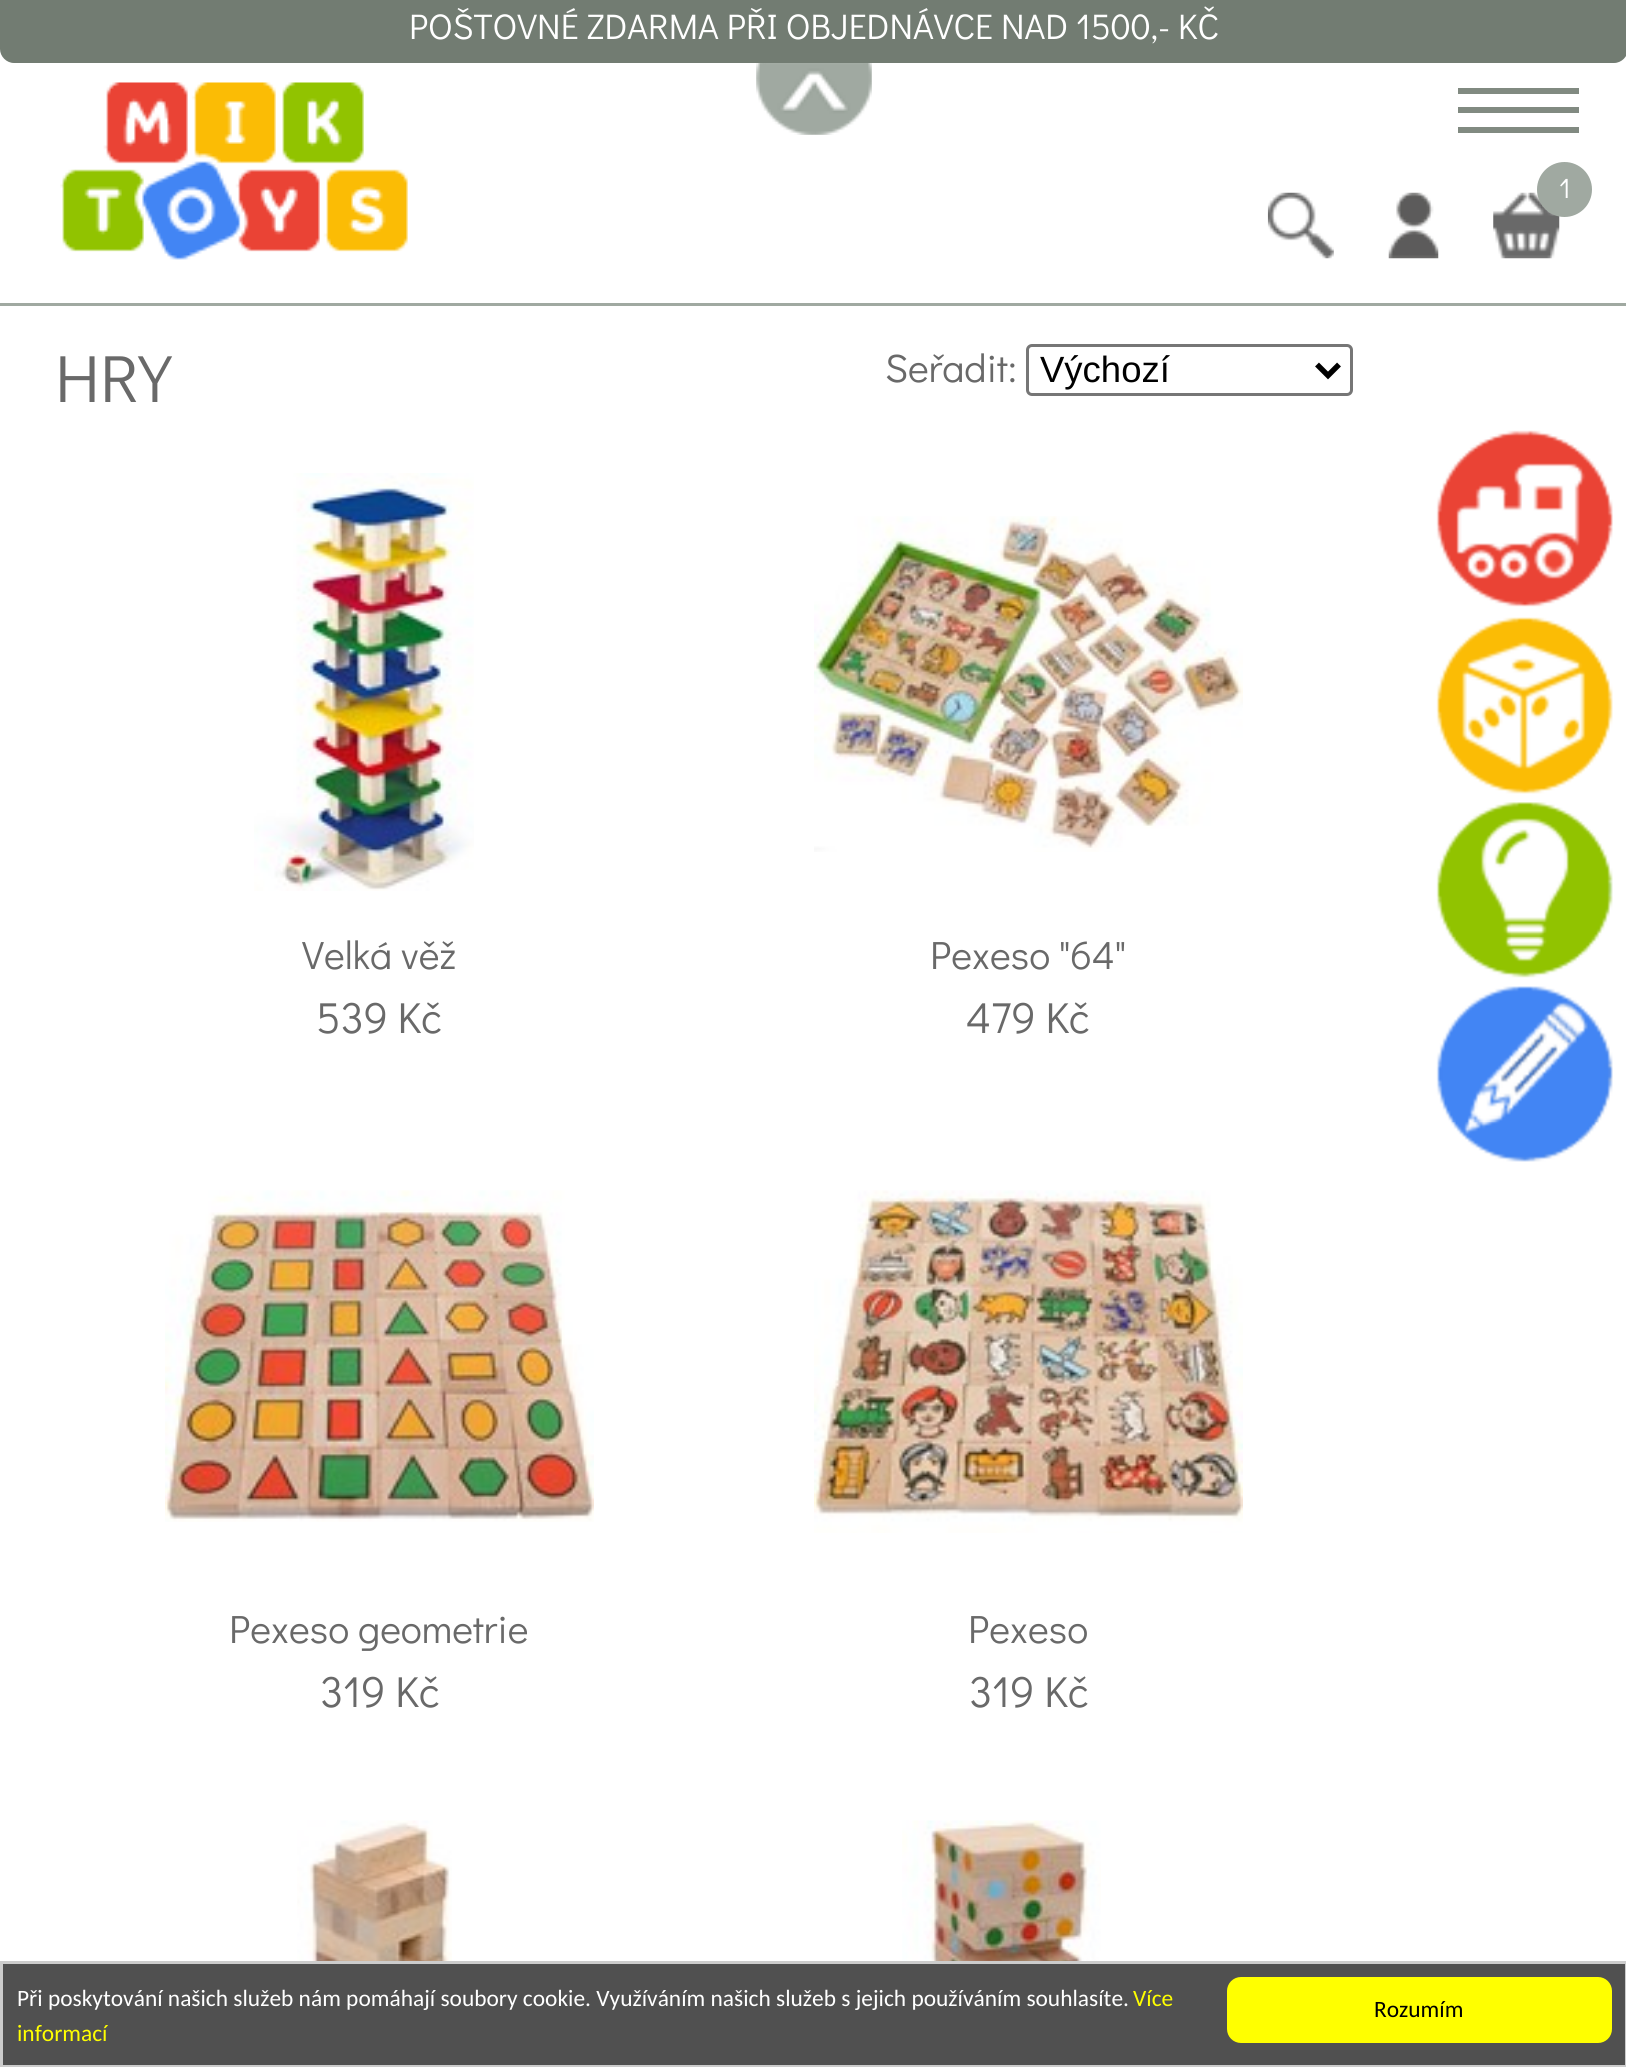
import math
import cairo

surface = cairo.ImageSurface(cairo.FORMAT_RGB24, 1626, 2067)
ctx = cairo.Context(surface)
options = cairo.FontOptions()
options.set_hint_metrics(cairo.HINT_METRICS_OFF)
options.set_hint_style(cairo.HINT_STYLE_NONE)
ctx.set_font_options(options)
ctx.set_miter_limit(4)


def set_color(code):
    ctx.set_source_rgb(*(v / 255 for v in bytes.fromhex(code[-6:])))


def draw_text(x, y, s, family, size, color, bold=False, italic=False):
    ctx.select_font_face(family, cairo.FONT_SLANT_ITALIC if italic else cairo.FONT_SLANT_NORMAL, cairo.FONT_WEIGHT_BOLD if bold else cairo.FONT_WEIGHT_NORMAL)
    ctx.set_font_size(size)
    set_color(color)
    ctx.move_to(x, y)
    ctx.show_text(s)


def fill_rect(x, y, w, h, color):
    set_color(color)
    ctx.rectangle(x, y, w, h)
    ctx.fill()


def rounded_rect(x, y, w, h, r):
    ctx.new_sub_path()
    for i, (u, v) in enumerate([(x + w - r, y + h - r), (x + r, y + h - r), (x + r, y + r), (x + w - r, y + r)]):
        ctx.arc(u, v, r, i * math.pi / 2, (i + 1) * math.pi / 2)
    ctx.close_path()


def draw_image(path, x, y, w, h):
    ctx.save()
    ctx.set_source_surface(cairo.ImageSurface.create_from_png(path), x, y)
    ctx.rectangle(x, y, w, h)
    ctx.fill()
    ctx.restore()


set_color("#ffffff")
ctx.paint()
set_color("#727c72")
ctx.new_path()
ctx.move_to(0, 0)
ctx.line_to(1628, 0)
ctx.line_to(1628, 49)
ctx.curve_to(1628, 56.5, 1621.5, 63, 1614, 63)
ctx.line_to(14, 63)
ctx.curve_to(6.5, 63, 0, 56.5, 0, 49)
ctx.close_path()
ctx.fill()
draw_text(409, 39, "POŠTOVNÉ ZDARMA PŘI OBJEDNÁVCE NAD 1500,- KČ", "Didact Gothic", 35.6, "#ffffff")
draw_image("assets/img1.png", 756, 63, 116, 72)
draw_image("assets/img2.png", 60, 82, 348, 178)
fill_rect(1458, 88, 121, 6, "#818a81")
fill_rect(1458, 107, 121, 6, "#818a81")
fill_rect(1458, 127, 121, 6, "#818a81")
fill_rect(0, 303, 1626, 3, "#a0a9a1")
draw_image("assets/img3.png", 1493, 192, 67, 67)
ctx.arc(1564.5, 189.5, 27.5, 0, 2 * math.pi)
ctx.fill()
draw_text(1559, 198, "1", "Didact Gothic", 28, "#ffffff")
draw_image("assets/img4.png", 1267, 192, 67, 67)
draw_image("assets/img5.png", 1388, 192, 51, 67)
draw_text(55, 402, "HRY", "Didact Gothic", 67, "#696969")
draw_text(885, 382, "Seřadit:", "Didact Gothic", 39.5, "#696969")
rounded_rect(1027.5, 345.5, 324, 49, 4.5)
set_color("#767676")
ctx.set_line_width(3)
ctx.stroke()
ctx.new_path()
ctx.move_to(1317, 364.5)
ctx.line_to(1328, 375.5)
ctx.line_to(1339, 364.5)
set_color("#000000")
ctx.set_line_width(5.5)
ctx.stroke()
draw_text(1040, 382, "Výchozí", "Liberation Sans", 36.5, "#000000")
draw_image("assets/img6.png", 254, 473, 220, 418)
draw_text(302, 969, "Velká věž", "Didact Gothic", 39.5, "#696969")
draw_text(316, 1033, "539 Kč", "Didact Gothic", 43.5, "#696969")
draw_image("assets/img7.png", 814, 516, 429, 336)
draw_text(930, 969, "Pexeso \"64\"", "Didact Gothic", 39.5, "#696969")
draw_text(966, 1033, "479 Kč", "Didact Gothic", 43.5, "#696969")
draw_image("assets/img8.png", 165, 1190, 429, 332)
draw_text(229, 1643, "Pexeso geometrie", "Didact Gothic", 39.5, "#696969")
draw_text(320, 1707, "319 Kč", "Didact Gothic", 43.5, "#696969")
draw_image("assets/img9.png", 814, 1190, 429, 343)
draw_text(968, 1643, "Pexeso", "Didact Gothic", 39.5, "#696969")
draw_text(969, 1707, "319 Kč", "Didact Gothic", 43.5, "#696969")
draw_image("assets/img10.png", 297, 1820, 155, 141)
draw_image("assets/img11.png", 902, 1820, 199, 141)
draw_image("assets/img12.png", 1436, 430, 177, 177)
draw_image("assets/img13.png", 1436, 617, 177, 177)
draw_image("assets/img14.png", 1436, 802, 177, 176)
draw_image("assets/img15.png", 1436, 986, 177, 176)
set_color("#505050")
ctx.rectangle(1.5, 1962.5, 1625, 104)
ctx.fill_preserve()
set_color("#cccccc")
ctx.set_line_width(3)
ctx.stroke()
draw_text(17, 2006, "Při poskytování našich služeb nám pomáhají soubory cookie. Využíváním našich služeb s jejich používáním souhlasíte.", "Carlito", 23.4, "#ffffff")
draw_text(1133, 2006, "Více", "Carlito", 23.4, "#ffff00")
draw_text(17, 2041, "informací", "Carlito", 23.4, "#ffff00")
rounded_rect(1227, 1977, 385, 66, 14)
ctx.fill()
draw_text(1374, 2017, "Rozumím", "Carlito", 23.4, "#000000")
surface.write_to_png("output.png")
